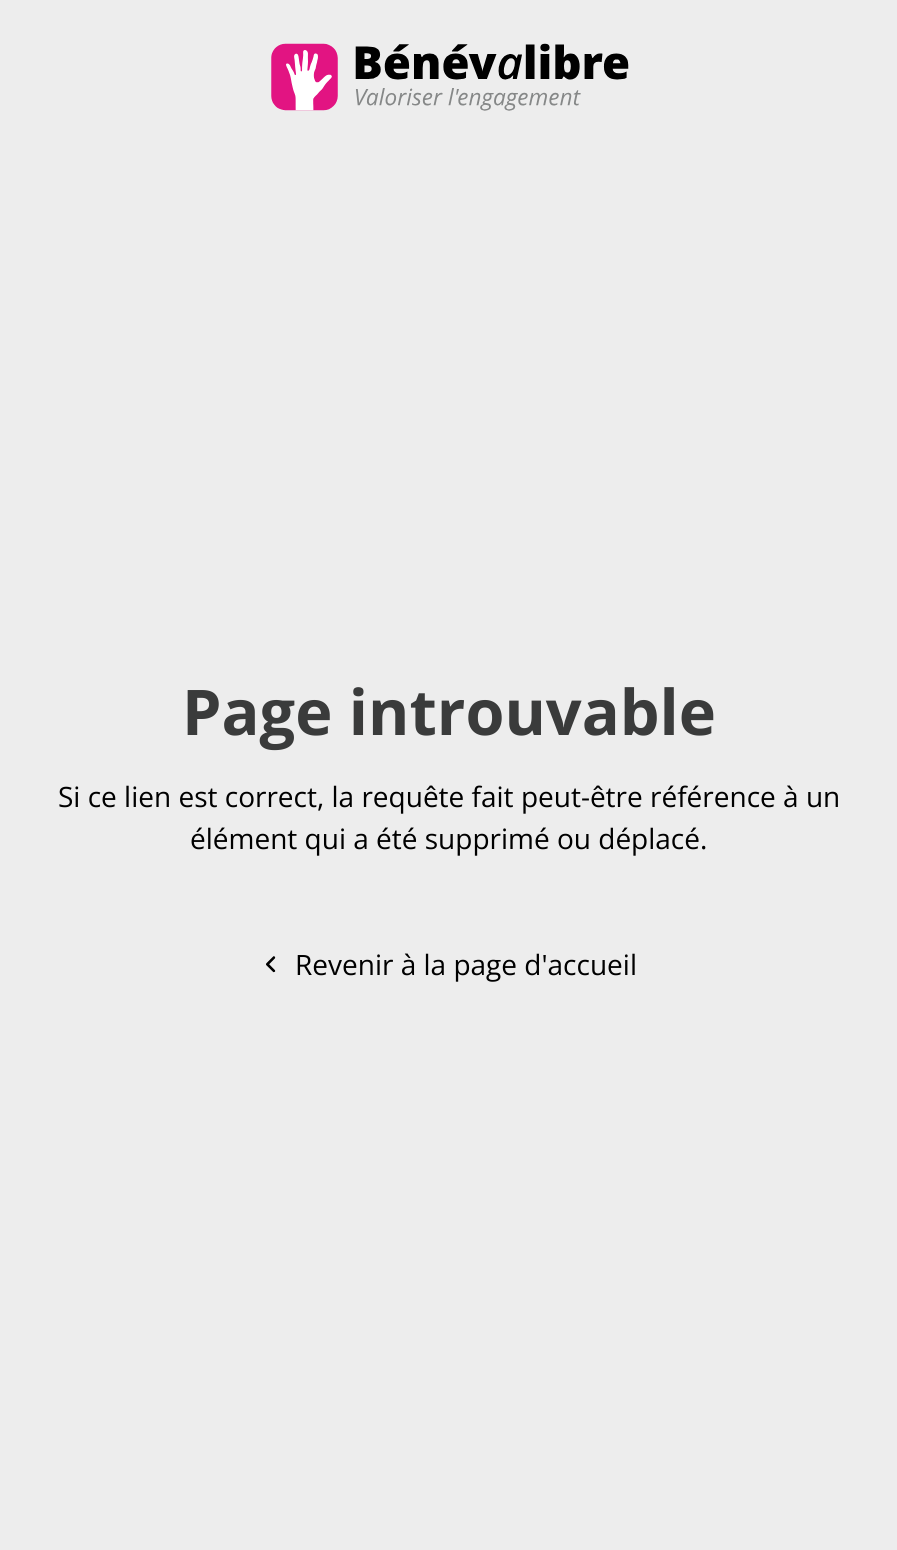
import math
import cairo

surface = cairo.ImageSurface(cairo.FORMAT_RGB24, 897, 1550)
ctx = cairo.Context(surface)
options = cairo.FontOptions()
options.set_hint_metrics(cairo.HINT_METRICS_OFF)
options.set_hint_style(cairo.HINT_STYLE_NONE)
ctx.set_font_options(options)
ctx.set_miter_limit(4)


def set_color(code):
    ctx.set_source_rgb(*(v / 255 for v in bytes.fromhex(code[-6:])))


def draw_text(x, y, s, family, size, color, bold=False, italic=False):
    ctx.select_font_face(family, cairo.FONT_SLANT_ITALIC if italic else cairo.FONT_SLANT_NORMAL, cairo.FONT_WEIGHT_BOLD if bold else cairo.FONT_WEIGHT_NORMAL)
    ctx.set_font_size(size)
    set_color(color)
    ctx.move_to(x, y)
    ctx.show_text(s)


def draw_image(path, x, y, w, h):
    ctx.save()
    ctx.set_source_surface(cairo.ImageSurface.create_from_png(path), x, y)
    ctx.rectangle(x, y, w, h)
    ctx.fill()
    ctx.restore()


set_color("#ededed")
ctx.paint()
draw_image("assets/img1.png", 271, 43, 358, 68)
draw_text(182, 735, "Page introuvable", "Open Sans", 63, "#3a3b3b", bold=True)
draw_text(58, 807, "Si ce lien est correct, la requête fait peut-être référence à un", "Open Sans", 28, "#000000")
draw_text(190, 849, "élément qui a été supprimé ou déplacé.", "Open Sans", 28, "#000000")
draw_image("assets/img2.png", 266, 956, 10, 17)
draw_text(295, 975, "Revenir à la page d'accueil", "Open Sans", 28, "#000000")
surface.write_to_png("output.png")
